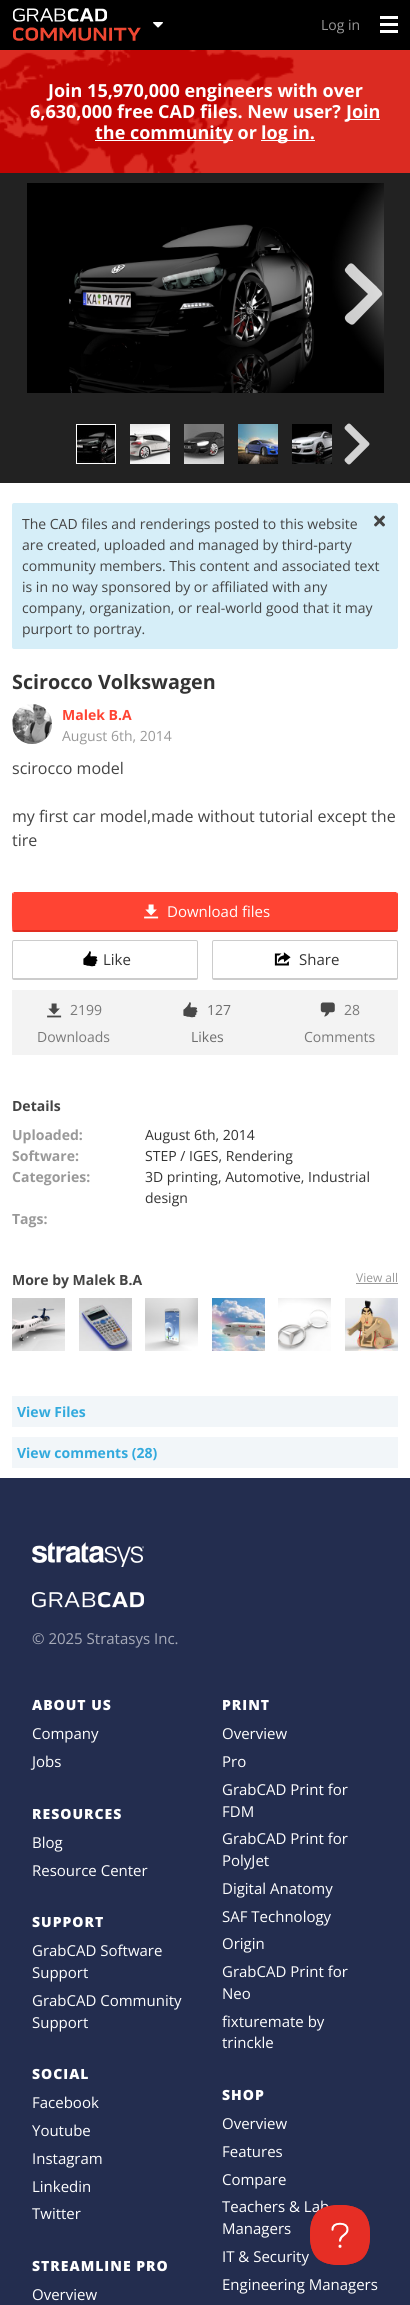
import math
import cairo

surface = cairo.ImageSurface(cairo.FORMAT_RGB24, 410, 2305)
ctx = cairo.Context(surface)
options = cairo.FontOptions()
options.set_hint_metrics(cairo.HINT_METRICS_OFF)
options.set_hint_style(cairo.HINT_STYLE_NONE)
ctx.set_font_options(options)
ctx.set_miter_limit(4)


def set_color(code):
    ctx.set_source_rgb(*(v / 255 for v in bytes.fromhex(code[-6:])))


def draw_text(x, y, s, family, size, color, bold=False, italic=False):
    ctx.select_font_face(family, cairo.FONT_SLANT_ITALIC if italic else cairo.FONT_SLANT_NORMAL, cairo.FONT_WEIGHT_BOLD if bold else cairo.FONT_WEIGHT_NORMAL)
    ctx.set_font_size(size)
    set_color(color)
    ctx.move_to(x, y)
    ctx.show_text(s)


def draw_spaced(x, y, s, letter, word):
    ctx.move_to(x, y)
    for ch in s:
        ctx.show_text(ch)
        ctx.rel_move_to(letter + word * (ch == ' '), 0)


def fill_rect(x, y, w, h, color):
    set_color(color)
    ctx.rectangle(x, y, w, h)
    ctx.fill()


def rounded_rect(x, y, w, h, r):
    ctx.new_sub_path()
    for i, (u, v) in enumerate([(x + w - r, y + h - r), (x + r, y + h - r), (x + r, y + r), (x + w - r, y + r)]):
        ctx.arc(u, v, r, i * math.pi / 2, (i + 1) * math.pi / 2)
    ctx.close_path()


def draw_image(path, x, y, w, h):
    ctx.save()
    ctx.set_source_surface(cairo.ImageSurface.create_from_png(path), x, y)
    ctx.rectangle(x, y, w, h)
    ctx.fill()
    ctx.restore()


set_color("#000000")
ctx.paint()
draw_image("assets/img1.png", 13, 8, 128, 33)
draw_image("assets/img2.png", 153, 22, 10, 6)
draw_text(321, 30, "Log in", "Open Sans", 14, "#999999")
fill_rect(380, 23, 18, 3, "#ffffff")
fill_rect(380, 16, 18, 3, "#ffffff")
fill_rect(380, 30, 18, 3, "#ffffff")
fill_rect(0, 483, 410, 995, "#ffffff")
fill_rect(0, 50, 410, 123, "#db2b22")
draw_image("assets/img3.png", 0, 50, 295, 123)
draw_text(48, 97, "Join 15,970,000 engineers with over", "Open Sans", 18, "#ffffff", bold=True)
draw_text(30, 118, "6,630,000 free CAD files. New user?", "Open Sans", 18, "#ffffff", bold=True)
fill_rect(346, 119, 34, 1, "#ffffff")
draw_text(346, 118, "Join", "Open Sans", 18, "#ffffff", bold=True)
fill_rect(95, 140, 138, 1, "#ffffff")
draw_text(95, 139, "the community or", "Open Sans", 18, "#ffffff", bold=True)
fill_rect(261, 140, 54, 1, "#ffffff")
draw_text(261, 139, "log in.", "Open Sans", 18, "#ffffff", bold=True)
fill_rect(0, 173, 410, 310, "#222222")
draw_image("assets/img4.png", 27, 183, 357, 210)
ctx.set_source_rgba(1, 1, 1, 0.8)
ctx.new_path()
ctx.move_to(381, 296)
ctx.line_to(354, 324)
ctx.curve_to(351, 326, 349, 323, 347, 322)
ctx.curve_to(341, 316, 349, 313, 353, 309)
ctx.line_to(368, 294)
ctx.line_to(349, 276)
ctx.curve_to(348, 274, 344, 272, 345, 269)
ctx.line_to(348, 265)
ctx.curve_to(352, 261, 354, 265, 358, 269)
ctx.line_to(377, 287)
ctx.curve_to(378, 289, 385, 293, 381, 296)
ctx.close_path()
ctx.fill()
ctx.rectangle(76.5, 424.5, 39, 39)
set_color("#ffffff")
ctx.set_line_width(1)
ctx.stroke()
draw_image("assets/img5.png", 77, 425, 38, 38)
draw_image("assets/img6.png", 130, 424, 40, 40)
draw_image("assets/img7.png", 184, 424, 40, 40)
draw_image("assets/img8.png", 238, 424, 40, 40)
draw_image("assets/img9.png", 292, 424, 40, 40)
draw_image("assets/img10.png", 344, 423, 26, 42)
set_color("#d6eef8")
rounded_rect(12, 503, 386, 146, 2)
ctx.fill()
draw_text(22, 529, "The CAD files and renderings posted to this website", "Open Sans", 14, "#444444")
draw_image("assets/img11.png", 374, 515, 11, 12)
draw_text(22, 550, "are created, uploaded and managed by third-party", "Open Sans", 14, "#444444")
draw_text(22, 571, "community members. This content and associated text", "Open Sans", 14, "#444444")
draw_text(22, 592, "is in no way sponsored by or affiliated with any", "Open Sans", 14, "#444444")
draw_text(22, 613, "company, organization, or real-world good that it may", "Open Sans", 14, "#444444")
draw_text(22, 634, "purport to portray.", "Open Sans", 14, "#444444")
draw_text(12, 689, "Scirocco Volkswagen", "Open Sans", 19.75, "#333333", bold=True)
draw_image("assets/img12.png", 12, 704, 40, 40)
draw_text(62, 720, "Malek B.A", "Open Sans", 14, "#ff4433", bold=True)
draw_text(62, 741, "August 6th, 2014", "Open Sans", 14, "#999999")
draw_text(12, 774, "scirocco model", "Open Sans", 16, "#444444")
draw_text(12, 822, "my first car model,made without tutorial except the", "Open Sans", 16, "#444444")
draw_text(12, 846, "tire", "Open Sans", 16, "#444444")
set_color("#ff4433")
ctx.new_path()
ctx.move_to(14, 893)
ctx.line_to(396, 893)
ctx.curve_to(397, 893, 397, 893, 397, 894)
ctx.line_to(397, 930)
ctx.line_to(13, 930)
ctx.line_to(13, 894)
ctx.close_path()
ctx.fill()
ctx.new_path()
ctx.move_to(14, 892)
ctx.line_to(13, 893)
ctx.line_to(14, 894)
ctx.line_to(14, 893)
ctx.line_to(397, 893)
ctx.line_to(396, 892)
ctx.close_path()
ctx.fill()
ctx.new_path()
ctx.move_to(398, 930)
ctx.line_to(398, 894)
ctx.line_to(397.5, 892.5)
ctx.line_to(397, 893)
ctx.line_to(397, 918)
ctx.curve_to(397, 921, 396.5, 928.5, 397.5, 931)
ctx.close_path()
ctx.fill()
set_color("#e22e22")
ctx.new_path()
ctx.move_to(14, 932)
ctx.line_to(396, 932)
ctx.line_to(398, 931)
ctx.line_to(397, 930)
ctx.line_to(13, 930)
ctx.line_to(12, 931)
ctx.close_path()
ctx.fill()
set_color("#ff4433")
ctx.new_path()
ctx.move_to(12, 894)
ctx.curve_to(12, 898.5, 11.5, 930, 12.5, 931)
ctx.line_to(13, 930)
ctx.line_to(13, 894)
ctx.line_to(13.5, 893.5)
ctx.line_to(12.5, 892.5)
ctx.close_path()
ctx.fill()
draw_image("assets/img13.png", 144, 904, 15, 15)
draw_text(167, 917, "Download files", "Open Sans", 15, "#ffffff")
rounded_rect(12.5, 940.5, 185, 39, 1.5)
set_color("#cccccc")
ctx.stroke()
fill_rect(13, 978, 184, 1, "#cccccc")
draw_image("assets/img14.png", 83, 951, 15, 16)
draw_text(103, 965, "Like", "Open Sans", 15, "#333333")
rounded_rect(212.5, 940.5, 185, 39, 1.5)
set_color("#cccccc")
ctx.stroke()
fill_rect(213, 978, 184, 1, "#cccccc")
draw_image("assets/img15.png", 274, 952, 17, 14)
draw_text(299, 965, "Share", "Open Sans", 15, "#333333")
fill_rect(12, 990, 386, 65, "#f3f3f3")
draw_image("assets/img16.png", 47, 1003, 15, 15)
draw_text(70, 1015, "2199", "Open Sans", 14, "#797979")
draw_text(37, 1042, "Downloads", "Open Sans", 14, "#797979")
draw_image("assets/img17.png", 183, 1002, 15, 16)
draw_text(207, 1015, "127", "Open Sans", 14, "#6d6d6d")
draw_text(191, 1042, "Likes", "Open Sans", 14, "#6d6d6d")
draw_image("assets/img18.png", 320, 1002, 15, 15)
draw_text(344, 1015, "28", "Open Sans", 14, "#797979")
draw_text(304, 1042, "Comments", "Open Sans", 14, "#797979")
draw_text(12, 1111, "Details", "Open Sans", 14, "#444444", bold=True)
draw_text(12, 1140, "Uploaded:", "Open Sans", 14, "#999999", bold=True)
draw_text(145, 1140, "August 6th, 2014", "Open Sans", 14, "#333333")
draw_text(12, 1161, "Software:", "Open Sans", 14, "#999999", bold=True)
draw_text(145, 1161, "STEP / IGES, Rendering", "Open Sans", 14, "#333333")
draw_text(12, 1182, "Categories:", "Open Sans", 14, "#999999", bold=True)
draw_text(145, 1182, "3D printing, Automotive, Industrial", "Open Sans", 14, "#333333")
draw_text(145, 1203, "design", "Open Sans", 14, "#333333")
draw_text(12, 1224, "Tags:", "Open Sans", 14, "#999999", bold=True)
draw_text(12, 1285, "More by Malek B.A", "Open Sans", 14, "#444444", bold=True)
draw_text(356, 1282, "View all", "Open Sans", 12, "#999999")
fill_rect(356, 1283, 42, 1, "#999999")
draw_image("assets/img19.png", 12, 1298, 53, 53)
draw_image("assets/img20.png", 79, 1298, 53, 53)
draw_image("assets/img21.png", 145, 1298, 53, 53)
draw_image("assets/img22.png", 212, 1298, 53, 53)
draw_image("assets/img23.png", 278, 1298, 53, 53)
draw_image("assets/img24.png", 345, 1298, 53, 53)
fill_rect(12, 1396, 386, 31, "#f2f6f9")
draw_text(17, 1417, "View Files", "Open Sans", 14, "#33aadd", bold=True)
fill_rect(12, 1437, 386, 31, "#f2f6f9")
draw_text(17, 1458, "View comments (28)", "Open Sans", 14, "#33aadd", bold=True)
fill_rect(0, 1478, 410, 827, "#232d4f")
draw_image("assets/img25.png", 32, 1542, 112, 25)
draw_image("assets/img26.png", 32, 1592, 112, 16)
draw_text(32, 1644, "© 2025 Stratasys Inc.", "Open Sans", 15, "#a7abb9")
ctx.select_font_face("Open Sans ExtraBold")
ctx.set_font_size(14)
set_color("#ffffff")
draw_spaced(32, 1710, "ABOUT US", 1, 0)
draw_text(32, 1739, "Company", "Open Sans", 15, "#ffffff")
draw_text(32, 1767, "Jobs", "Open Sans", 15, "#ffffff")
ctx.select_font_face("Open Sans ExtraBold")
ctx.set_font_size(14)
draw_spaced(222, 1710, "PRINT", 1, 0)
draw_text(222, 1739, "Overview", "Open Sans", 15, "#ffffff")
draw_text(222, 1767, "Pro", "Open Sans", 15, "#ffffff")
draw_text(222, 1795, "GrabCAD Print for", "Open Sans", 15, "#ffffff")
draw_text(222, 1817, "FDM", "Open Sans", 15, "#ffffff")
draw_text(222, 1844, "GrabCAD Print for", "Open Sans", 15, "#ffffff")
draw_text(222, 1866, "PolyJet", "Open Sans", 15, "#ffffff")
draw_text(222, 1894, "Digital Anatomy", "Open Sans", 15, "#ffffff")
draw_text(222, 1922, "SAF Technology", "Open Sans", 15, "#ffffff")
draw_text(222, 1949, "Origin", "Open Sans", 15, "#ffffff")
draw_text(222, 1977, "GrabCAD Print for", "Open Sans", 15, "#ffffff")
draw_text(222, 1999, "Neo", "Open Sans", 15, "#ffffff")
draw_text(222, 2027, "fixturemate by", "Open Sans", 15, "#ffffff")
draw_text(222, 2048, "trinckle", "Open Sans", 15, "#ffffff")
ctx.select_font_face("Open Sans ExtraBold")
ctx.set_font_size(14)
draw_spaced(32, 1819, "RESOURCES", 1, 0)
draw_text(32, 1848, "Blog", "Open Sans", 15, "#ffffff")
draw_text(32, 1876, "Resource Center", "Open Sans", 15, "#ffffff")
ctx.select_font_face("Open Sans ExtraBold")
ctx.set_font_size(14)
draw_spaced(32, 1927, "SUPPORT", 1, 0)
draw_text(32, 1956, "GrabCAD Software", "Open Sans", 15, "#ffffff")
draw_text(32, 1978, "Support", "Open Sans", 15, "#ffffff")
draw_text(32, 2006, "GrabCAD Community", "Open Sans", 15, "#ffffff")
draw_text(32, 2028, "Support", "Open Sans", 15, "#ffffff")
ctx.select_font_face("Open Sans ExtraBold")
ctx.set_font_size(14)
draw_spaced(32, 2079, "SOCIAL", 1, 0)
draw_text(32, 2108, "Facebook", "Open Sans", 15, "#ffffff")
draw_text(32, 2136, "Youtube", "Open Sans", 15, "#ffffff")
draw_text(32, 2164, "Instagram", "Open Sans", 15, "#ffffff")
draw_text(32, 2192, "Linkedin", "Open Sans", 15, "#ffffff")
draw_text(32, 2219, "Twitter", "Open Sans", 15, "#ffffff")
ctx.select_font_face("Open Sans ExtraBold")
ctx.set_font_size(14)
draw_spaced(222, 2100, "SHOP", 1, 0)
draw_text(222, 2129, "Overview", "Open Sans", 15, "#ffffff")
draw_text(222, 2157, "Features", "Open Sans", 15, "#ffffff")
draw_text(222, 2185, "Compare", "Open Sans", 15, "#ffffff")
draw_text(222, 2212, "Teachers & Lab", "Open Sans", 15, "#ffffff")
draw_text(222, 2234, "Managers", "Open Sans", 15, "#ffffff")
draw_text(222, 2262, "IT & Security", "Open Sans", 15, "#ffffff")
draw_text(222, 2290, "Engineering Managers", "Open Sans", 15, "#ffffff")
ctx.select_font_face("Open Sans ExtraBold")
ctx.set_font_size(14)
draw_spaced(32, 2271, "STREAMLINE PRO", 1, 0)
draw_text(32, 2300, "Overview", "Open Sans", 15, "#ffffff")
draw_image("assets/img27.png", 310, 2205, 60, 60)
surface.write_to_png("output.png")
